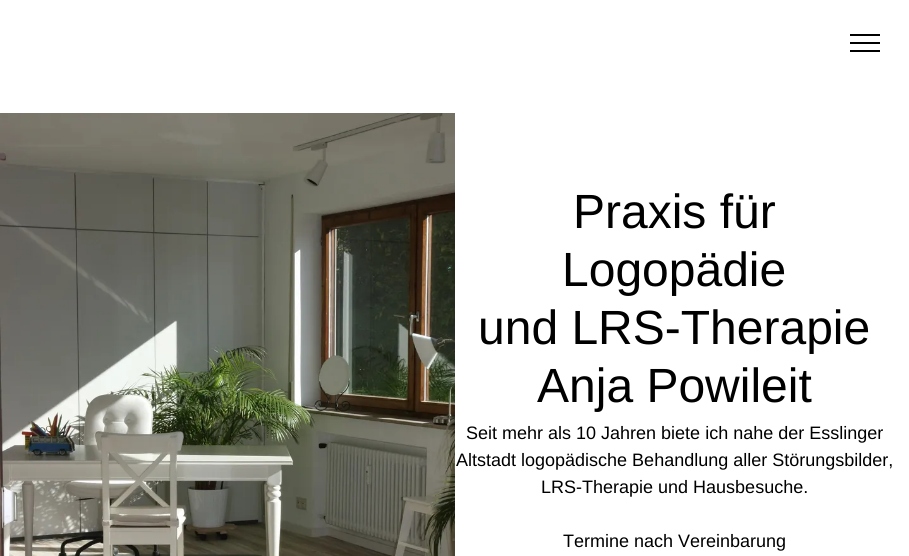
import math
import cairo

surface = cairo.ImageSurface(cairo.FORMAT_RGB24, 909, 556)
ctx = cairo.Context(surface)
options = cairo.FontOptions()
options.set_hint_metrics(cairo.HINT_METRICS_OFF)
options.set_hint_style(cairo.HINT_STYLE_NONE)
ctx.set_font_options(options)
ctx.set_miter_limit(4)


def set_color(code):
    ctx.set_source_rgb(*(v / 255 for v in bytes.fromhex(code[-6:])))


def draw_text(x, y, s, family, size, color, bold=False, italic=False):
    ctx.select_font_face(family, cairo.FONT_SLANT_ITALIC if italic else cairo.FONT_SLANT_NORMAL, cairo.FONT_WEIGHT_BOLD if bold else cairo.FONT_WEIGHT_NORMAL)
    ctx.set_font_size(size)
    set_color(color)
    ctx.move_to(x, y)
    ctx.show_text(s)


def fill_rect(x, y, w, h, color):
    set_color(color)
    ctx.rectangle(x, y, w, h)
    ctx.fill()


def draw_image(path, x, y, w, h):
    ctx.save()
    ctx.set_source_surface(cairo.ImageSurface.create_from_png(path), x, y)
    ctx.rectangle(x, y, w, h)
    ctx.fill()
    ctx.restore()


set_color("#ffffff")
ctx.paint()
fill_rect(850, 34, 30, 2, "#000000")
fill_rect(850, 42, 30, 2, "#000000")
fill_rect(850, 50, 30, 2, "#000000")
draw_image("assets/img1.png", 0, 113, 455, 443)
draw_text(573, 228, "Praxis für", "Liberation Sans", 48, "#000000")
draw_text(562, 286, "Logopädie", "Liberation Sans", 48, "#000000")
draw_text(478, 344, "und LRS-Therapie", "Liberation Sans", 48, "#000000")
draw_text(537, 402, "Anja Powileit", "Liberation Sans", 48, "#000000")
draw_text(466, 439, "Seit mehr als 10 Jahren biete ich nahe der Esslinger", "Liberation Sans", 18, "#000000")
draw_text(456, 466, "Altstadt logopädische Behandlung aller Störungsbilder,", "Liberation Sans", 18, "#000000")
draw_text(541, 493, "LRS-Therapie und Hausbesuche.", "Liberation Sans", 18, "#000000")
draw_text(563, 547, "Termine nach Vereinbarung", "Liberation Sans", 18, "#000000")
surface.write_to_png("output.png")
